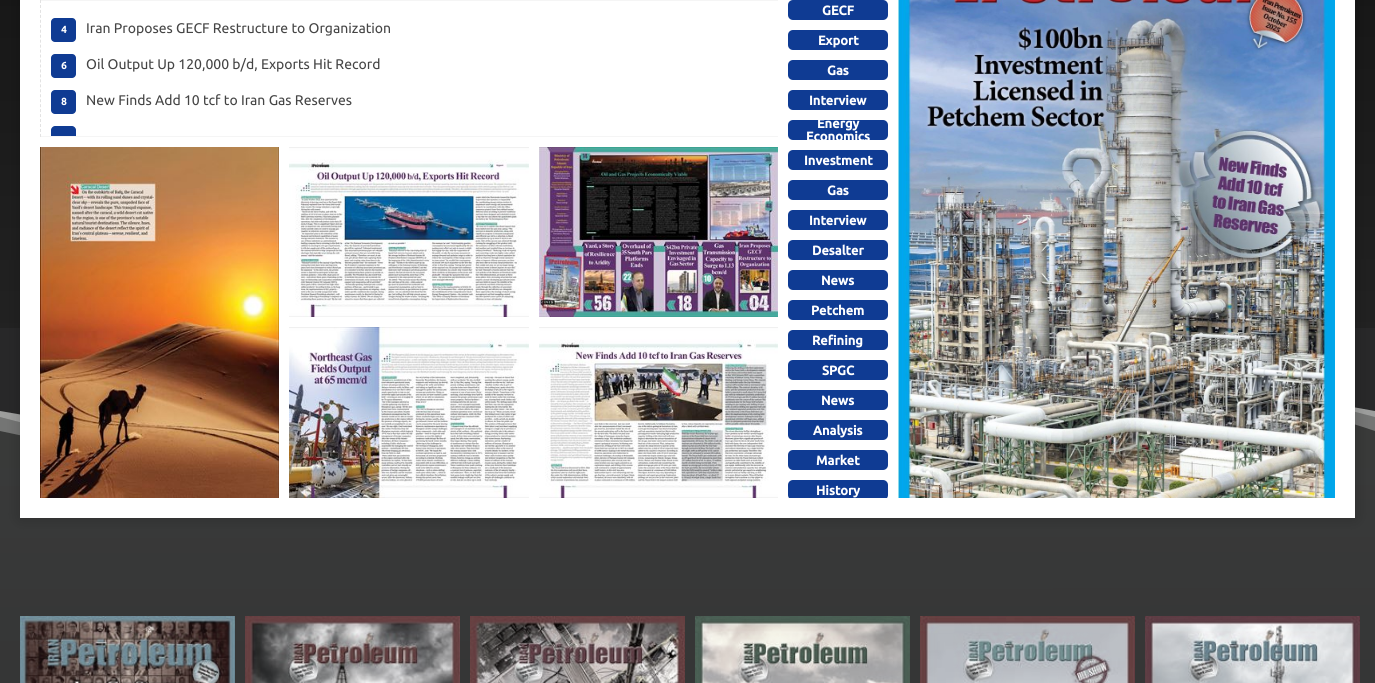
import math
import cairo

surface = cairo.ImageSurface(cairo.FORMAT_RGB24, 1375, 683)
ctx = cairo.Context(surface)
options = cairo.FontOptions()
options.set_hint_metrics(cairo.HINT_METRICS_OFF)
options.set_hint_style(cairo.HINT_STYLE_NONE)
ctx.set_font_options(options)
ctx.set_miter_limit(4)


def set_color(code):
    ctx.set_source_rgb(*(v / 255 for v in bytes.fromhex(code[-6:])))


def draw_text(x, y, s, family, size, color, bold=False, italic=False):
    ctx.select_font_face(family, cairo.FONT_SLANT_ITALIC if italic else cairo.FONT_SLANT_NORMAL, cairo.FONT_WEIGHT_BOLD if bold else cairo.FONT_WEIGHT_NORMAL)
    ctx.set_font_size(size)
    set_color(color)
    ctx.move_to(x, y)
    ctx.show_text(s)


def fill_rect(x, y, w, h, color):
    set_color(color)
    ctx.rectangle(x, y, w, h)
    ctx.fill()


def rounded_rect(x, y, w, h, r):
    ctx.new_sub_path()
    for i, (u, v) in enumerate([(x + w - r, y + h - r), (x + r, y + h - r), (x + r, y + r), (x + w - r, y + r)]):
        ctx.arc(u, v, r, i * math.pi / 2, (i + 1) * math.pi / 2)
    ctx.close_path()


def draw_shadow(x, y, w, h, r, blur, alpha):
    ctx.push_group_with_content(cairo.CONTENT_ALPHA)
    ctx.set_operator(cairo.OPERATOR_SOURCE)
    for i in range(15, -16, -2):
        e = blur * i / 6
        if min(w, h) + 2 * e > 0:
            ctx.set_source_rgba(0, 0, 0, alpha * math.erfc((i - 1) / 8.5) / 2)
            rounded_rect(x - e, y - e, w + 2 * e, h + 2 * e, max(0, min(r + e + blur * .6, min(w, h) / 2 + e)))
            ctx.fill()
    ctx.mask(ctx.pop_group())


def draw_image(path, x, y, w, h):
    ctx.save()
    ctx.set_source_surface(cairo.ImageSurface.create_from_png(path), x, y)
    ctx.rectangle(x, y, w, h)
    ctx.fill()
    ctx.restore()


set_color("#ffffff")
ctx.paint()
gradient = cairo.LinearGradient(687, -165, 688, 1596)
gradient.add_color_stop_rgba(0, 0.071, 0.071, 0.071, 1)
gradient.add_color_stop_rgba(0.5, 0.18, 0.18, 0.18, 1)
gradient.add_color_stop_rgba(1, 0.2, 0.2, 0.2, 1)
ctx.set_source(gradient)
ctx.rectangle(0, 0, 1375, 328)
ctx.fill()
fill_rect(0, 424, 1375, 44, "#393a39")
set_color("#747574")
ctx.set_fill_rule(cairo.FILL_RULE_EVEN_ODD)
ctx.new_path()
ctx.move_to(1375, 431)
ctx.curve_to(1229, 381, 1021, 367, 749, 390)
ctx.curve_to(521, 477, 271, 491, 0, 431)
ctx.line_to(0, 334)
ctx.line_to(1375, 334)
ctx.close_path()
ctx.fill()
ctx.set_source_rgba(1, 1, 1, 0.3)
ctx.new_path()
ctx.move_to(1375, 417)
ctx.curve_to(1166, 361, 936, 361, 688, 417)
ctx.curve_to(439, 473, 209, 473, 0, 417)
ctx.line_to(0, 334)
ctx.line_to(1375, 334)
ctx.close_path()
ctx.fill()
set_color("#282829")
ctx.new_path()
ctx.move_to(1375, 411)
ctx.curve_to(1168, 373, 939, 373, 688, 411)
ctx.curve_to(436, 448, 207, 448, 0, 411)
ctx.line_to(0, 328)
ctx.line_to(1375, 328)
ctx.close_path()
ctx.fill()
gradient = cairo.LinearGradient(687, 466, 688, 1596)
gradient.add_color_stop_rgba(0, 0.224, 0.227, 0.227, 1)
gradient.add_color_stop_rgba(1, 0.141, 0.141, 0.141, 1)
ctx.set_source(gradient)
ctx.rectangle(0, 468, 1375, 215)
ctx.fill()
set_color("#000000")
draw_shadow(20, -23, 1335, 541, 0, 7.5, 0.2)
fill_rect(20, 0, 1335, 518, "#ffffff")
fill_rect(40, 0, 738, 1, "#f5f5f5")
fill_rect(40, 136, 738, 1, "#f5f5f5")
ctx.new_path()
ctx.move_to(40.5, 0)
ctx.line_to(40.5, 137)
set_color("#e2e2e2")
ctx.set_line_width(1)
ctx.set_dash([3, 1.96])
ctx.stroke()
set_color("#0f3b93")
rounded_rect(51, 18, 25, 24, 4)
ctx.fill()
draw_text(61, 33, "4", "Ubuntu", 10, "#ffffff", bold=True)
draw_text(86, 33, "Iran Proposes GECF Restructure to Organization", "Ubuntu", 14, "#454545")
set_color("#0f3b93")
rounded_rect(51, 54, 25, 24, 4)
ctx.fill()
draw_text(61, 69, "6", "Ubuntu", 10, "#ffffff", bold=True)
draw_text(86, 69, "Oil Output Up 120,000 b/d, Exports Hit Record", "Ubuntu", 14, "#454545")
set_color("#0f3b93")
rounded_rect(51, 90, 25, 24, 4)
ctx.fill()
draw_text(61, 105, "8", "Ubuntu", 10, "#ffffff", bold=True)
draw_text(86, 105, "New Finds Add 10 tcf to Iran Gas Reserves", "Ubuntu", 14, "#454545")
set_color("#0f3b93")
ctx.new_path()
ctx.move_to(55, 126)
ctx.line_to(72, 126)
ctx.curve_to(74, 126, 76, 128, 76, 130)
ctx.line_to(76, 136)
ctx.line_to(51, 136)
ctx.line_to(51, 130)
ctx.curve_to(51, 128, 53, 126, 55, 126)
ctx.close_path()
ctx.fill()
rounded_rect(788, 0, 100, 20, 5)
ctx.fill()
draw_text(822, 15, "GECF", "Ubuntu", 13, "#ffffff", bold=True)
set_color("#0f3b93")
rounded_rect(788, 30, 100, 20, 5)
ctx.fill()
draw_text(818, 45, "Export", "Ubuntu", 13, "#ffffff", bold=True)
set_color("#0f3b93")
rounded_rect(788, 60, 100, 20, 5)
ctx.fill()
draw_text(827, 75, "Gas", "Ubuntu", 13, "#ffffff", bold=True)
set_color("#0f3b93")
rounded_rect(788, 90, 100, 20, 5)
ctx.fill()
draw_text(809, 105, "Interview", "Ubuntu", 13, "#ffffff", bold=True)
set_color("#0f3b93")
rounded_rect(788, 120, 100, 20, 5)
ctx.fill()
draw_text(817, 128, "Energy", "Ubuntu", 13, "#ffffff", bold=True)
draw_text(806, 141, "Economics", "Ubuntu", 13, "#ffffff", bold=True)
set_color("#0f3b93")
rounded_rect(788, 150, 100, 20, 5)
ctx.fill()
draw_text(804, 165, "Investment", "Ubuntu", 13, "#ffffff", bold=True)
set_color("#0f3b93")
rounded_rect(788, 180, 100, 20, 5)
ctx.fill()
draw_text(827, 195, "Gas", "Ubuntu", 13, "#ffffff", bold=True)
set_color("#0f3b93")
rounded_rect(788, 210, 100, 20, 5)
ctx.fill()
draw_text(809, 225, "Interview", "Ubuntu", 13, "#ffffff", bold=True)
set_color("#0f3b93")
rounded_rect(788, 240, 100, 20, 5)
ctx.fill()
draw_text(812, 255, "Desalter", "Ubuntu", 13, "#ffffff", bold=True)
set_color("#0f3b93")
rounded_rect(788, 270, 100, 20, 5)
ctx.fill()
draw_text(821, 285, "News", "Ubuntu", 13, "#ffffff", bold=True)
set_color("#0f3b93")
rounded_rect(788, 300, 100, 20, 5)
ctx.fill()
draw_text(811, 315, "Petchem", "Ubuntu", 13, "#ffffff", bold=True)
set_color("#0f3b93")
rounded_rect(788, 330, 100, 20, 5)
ctx.fill()
draw_text(812, 345, "Refining", "Ubuntu", 13, "#ffffff", bold=True)
set_color("#0f3b93")
rounded_rect(788, 360, 100, 20, 5)
ctx.fill()
draw_text(822, 375, "SPGC", "Ubuntu", 13, "#ffffff", bold=True)
set_color("#0f3b93")
rounded_rect(788, 390, 100, 20, 5)
ctx.fill()
draw_text(821, 405, "News", "Ubuntu", 13, "#ffffff", bold=True)
set_color("#0f3b93")
rounded_rect(788, 420, 100, 20, 5)
ctx.fill()
draw_text(813, 435, "Analysis", "Ubuntu", 13, "#ffffff", bold=True)
set_color("#0f3b93")
rounded_rect(788, 450, 100, 20, 5)
ctx.fill()
draw_text(816, 465, "Market", "Ubuntu", 13, "#ffffff", bold=True)
ctx.save()
ctx.set_fill_rule(cairo.FILL_RULE_WINDING)
ctx.rectangle(788, 0, 100, 498)
ctx.clip()
set_color("#0f3b93")
rounded_rect(788, 480, 100, 20, 5)
ctx.fill()
ctx.restore()
draw_text(816, 495, "History", "Ubuntu", 13, "#ffffff", bold=True)
draw_image("assets/img1.png", 898, 0, 437, 498)
draw_image("assets/img2.png", 40, 147, 239, 351)
draw_image("assets/img3.png", 289, 147, 240, 170)
draw_image("assets/img4.png", 539, 147, 239, 170)
draw_image("assets/img5.png", 289, 327, 240, 171)
draw_image("assets/img6.png", 539, 327, 239, 171)
draw_image("assets/img7.png", 20, 616, 215, 67)
draw_image("assets/img8.png", 245, 616, 215, 67)
draw_image("assets/img9.png", 470, 616, 215, 67)
draw_image("assets/img10.png", 695, 616, 215, 67)
draw_image("assets/img11.png", 920, 616, 215, 67)
draw_image("assets/img12.png", 1145, 616, 215, 67)
surface.write_to_png("output.png")
